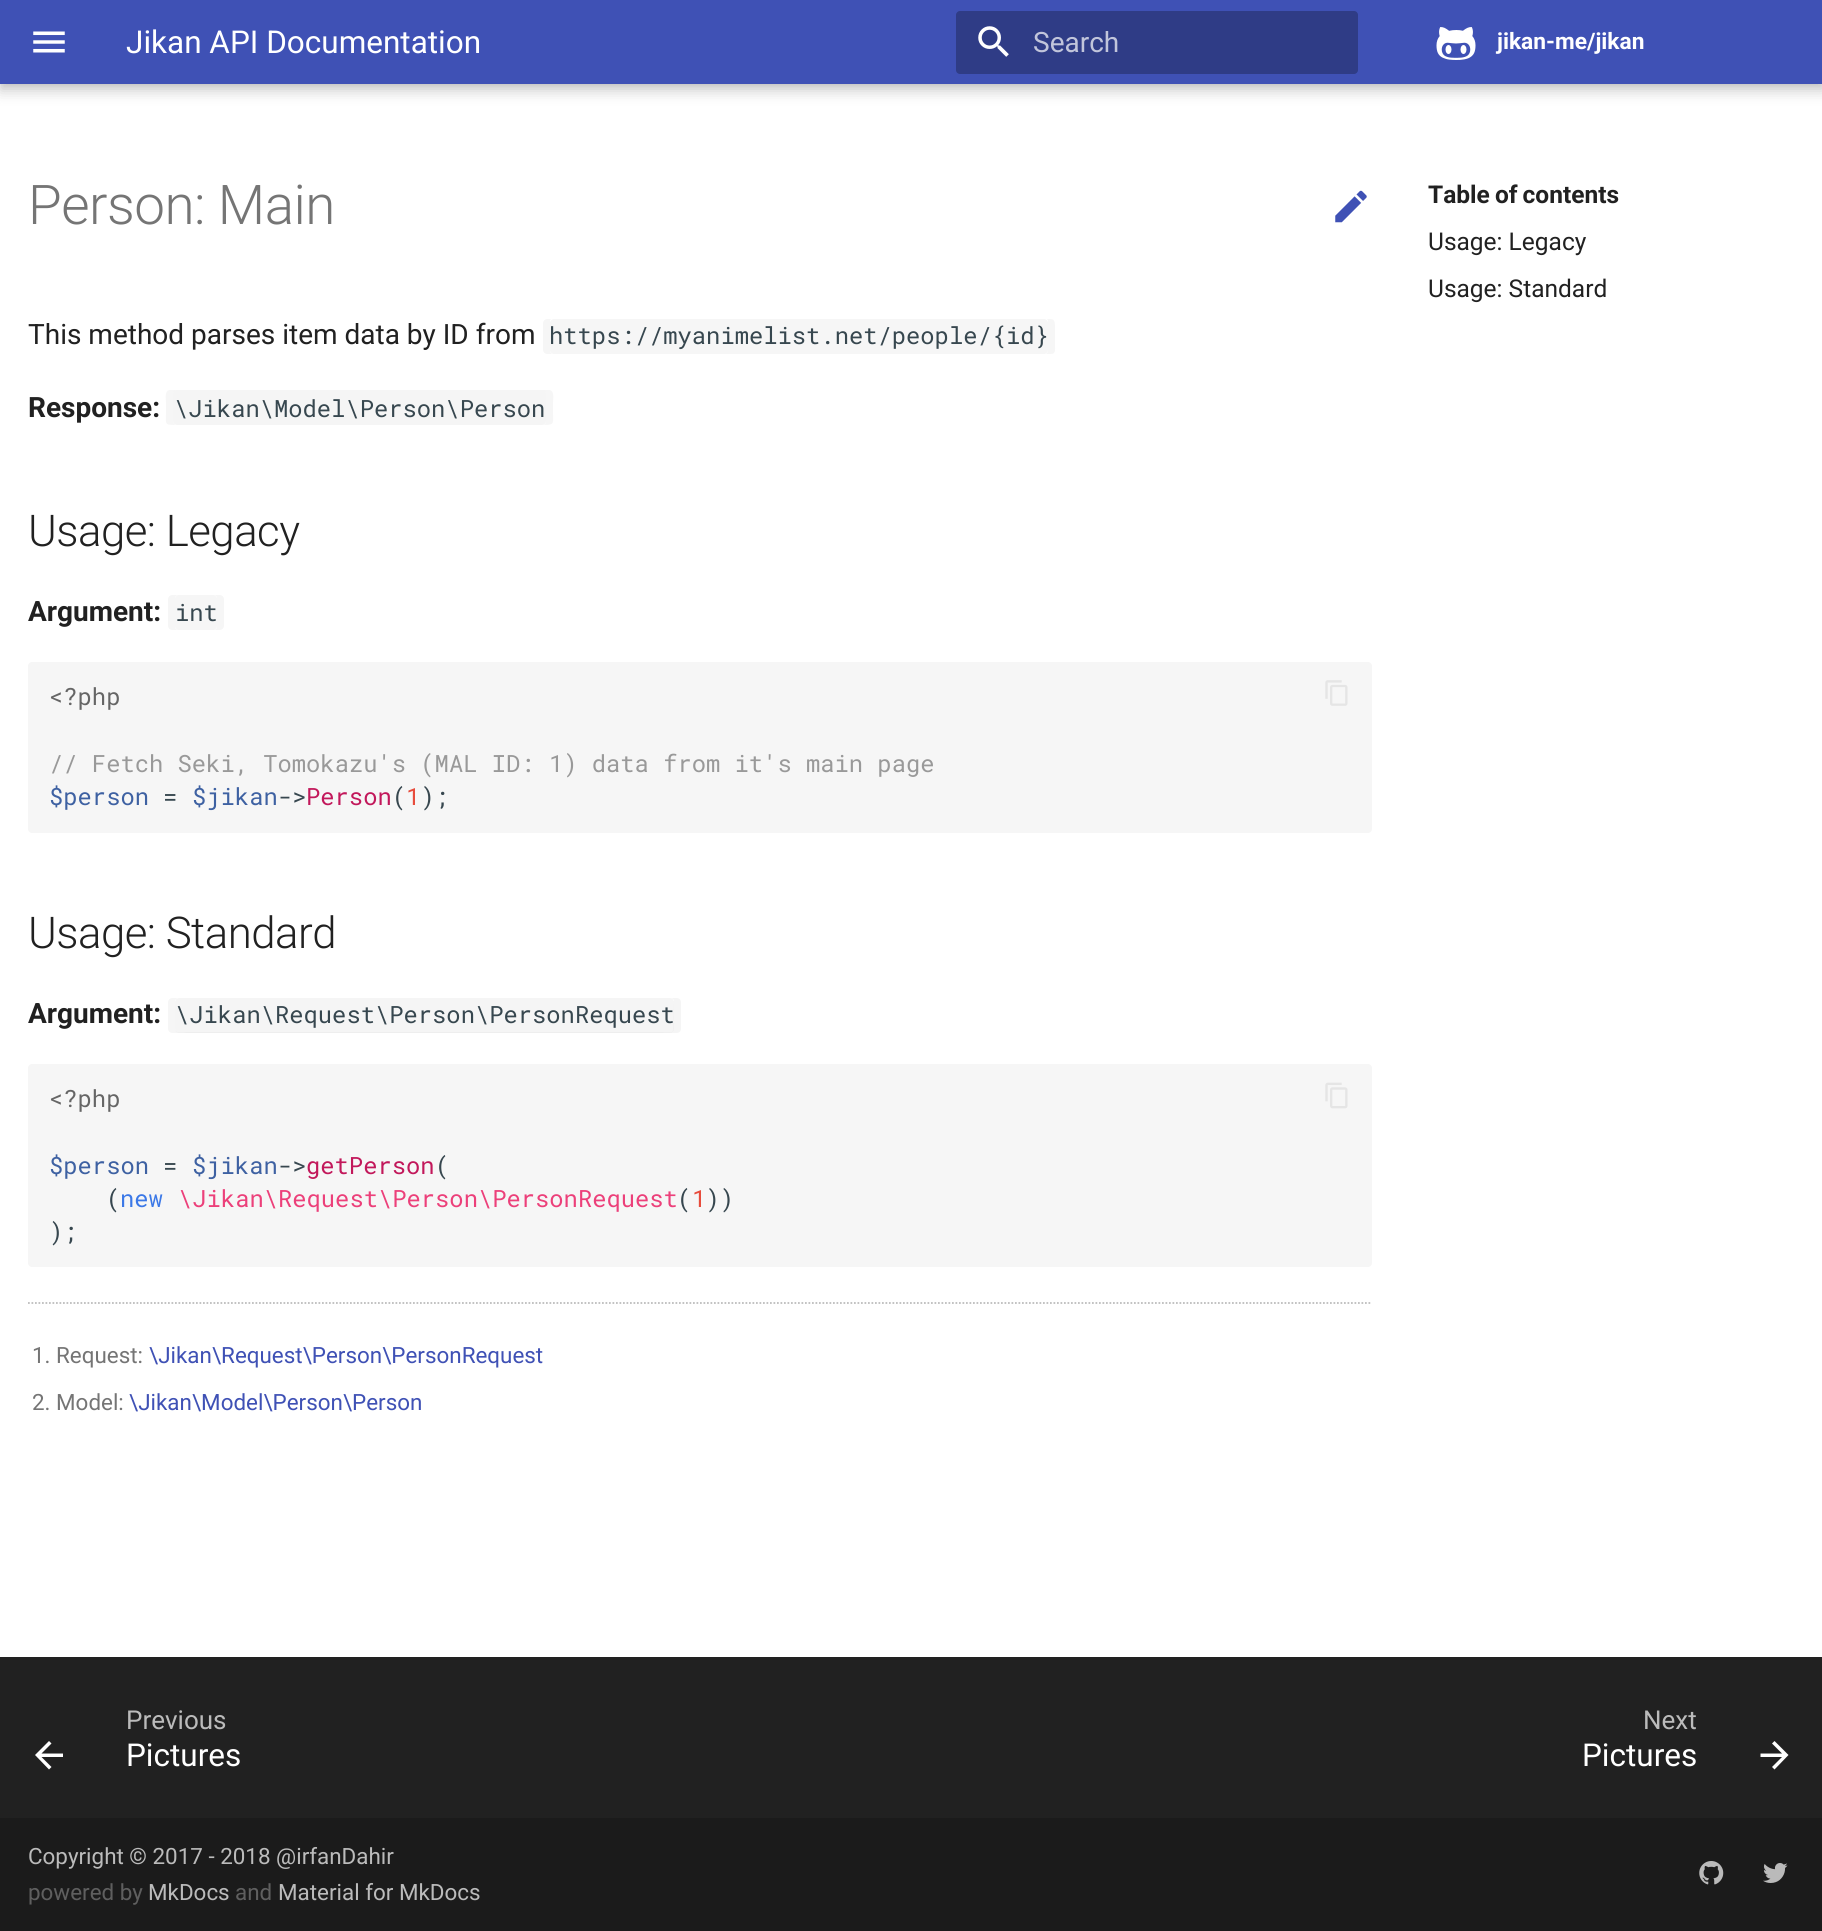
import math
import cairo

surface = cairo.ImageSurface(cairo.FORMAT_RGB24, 1822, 1931)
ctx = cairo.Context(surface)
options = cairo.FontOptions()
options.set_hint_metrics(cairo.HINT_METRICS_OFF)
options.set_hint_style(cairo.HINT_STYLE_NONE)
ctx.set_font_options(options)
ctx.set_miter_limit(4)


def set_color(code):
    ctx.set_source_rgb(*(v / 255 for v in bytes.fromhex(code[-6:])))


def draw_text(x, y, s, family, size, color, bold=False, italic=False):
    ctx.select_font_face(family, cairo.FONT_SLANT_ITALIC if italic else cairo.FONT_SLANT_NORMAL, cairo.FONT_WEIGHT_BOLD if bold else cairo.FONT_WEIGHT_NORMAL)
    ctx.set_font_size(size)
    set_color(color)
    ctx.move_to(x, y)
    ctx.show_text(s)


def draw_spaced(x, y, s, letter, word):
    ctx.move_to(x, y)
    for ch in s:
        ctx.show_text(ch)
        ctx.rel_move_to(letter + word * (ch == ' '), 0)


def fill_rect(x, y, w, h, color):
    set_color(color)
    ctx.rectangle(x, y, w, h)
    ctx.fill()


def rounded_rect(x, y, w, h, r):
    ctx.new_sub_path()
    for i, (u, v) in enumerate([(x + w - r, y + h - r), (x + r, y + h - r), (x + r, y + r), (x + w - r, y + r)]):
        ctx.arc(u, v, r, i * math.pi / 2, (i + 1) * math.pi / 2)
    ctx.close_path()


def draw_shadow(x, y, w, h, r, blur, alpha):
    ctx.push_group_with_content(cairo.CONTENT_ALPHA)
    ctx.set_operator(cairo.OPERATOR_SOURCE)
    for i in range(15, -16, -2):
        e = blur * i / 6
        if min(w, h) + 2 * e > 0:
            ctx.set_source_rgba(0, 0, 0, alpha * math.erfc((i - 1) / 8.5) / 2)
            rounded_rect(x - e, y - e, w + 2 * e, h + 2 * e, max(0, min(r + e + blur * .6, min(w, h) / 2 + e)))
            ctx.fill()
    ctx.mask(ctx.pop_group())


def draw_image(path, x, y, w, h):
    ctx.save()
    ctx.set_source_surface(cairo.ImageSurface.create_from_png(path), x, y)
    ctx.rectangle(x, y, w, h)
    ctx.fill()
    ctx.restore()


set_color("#ffffff")
ctx.paint()
set_color("#000000")
draw_shadow(0, 7, 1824, 84, 0, 7, 0.2)
draw_shadow(0, 0, 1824, 84, 0, 3.5, 0.1)
fill_rect(0, 0, 1822, 84, "#3f51b5")
draw_image("assets/img1.png", 33, 31, 32, 22)
draw_text(126, 53, "Jikan API Documentation", "Roboto", 31.5, "#ffffff")
set_color("#2f3c86")
rounded_rect(956, 11, 402, 63, 4)
ctx.fill()
draw_image("assets/img2.png", 978, 26, 31, 31)
draw_text(1033, 52, "Search", "Roboto", 28, "#c1c5db")
draw_image("assets/img3.png", 1436, 27, 40, 33)
draw_text(1497, 49, "jikan-me/jikan", "Roboto", 22.75, "#ffffff", bold=True)
ctx.select_font_face("Roboto Light")
ctx.set_font_size(54.75)
set_color("#757575")
draw_spaced(28, 224, "Person: Main", -0.5, 0)
draw_image("assets/img4.png", 1335, 190, 32, 33)
draw_text(28, 344, "This method parses item data by ID from", "Roboto", 28, "#212121")
set_color("#f6f6f6")
ctx.new_path()
ctx.move_to(547, 319)
ctx.curve_to(545, 319, 543, 321, 543, 323)
ctx.line_to(543, 350)
ctx.curve_to(543, 352, 545, 354, 547, 354)
ctx.line_to(1037, 354)
ctx.line_to(1039, 354)
ctx.line_to(553, 354)
ctx.curve_to(551, 354, 550, 352, 550, 350)
ctx.line_to(550, 322)
ctx.curve_to(550, 321, 550, 320, 551, 319)
ctx.close_path()
ctx.fill()
ctx.new_path()
ctx.move_to(559, 354)
ctx.line_to(561, 354)
ctx.line_to(1051, 354)
ctx.curve_to(1056, 354, 1055, 349, 1055, 346)
ctx.line_to(1055, 328)
ctx.curve_to(1055, 319, 1054, 319, 1047, 319)
ctx.curve_to(1048, 320, 1048, 321, 1048, 322)
ctx.line_to(1048, 350)
ctx.curve_to(1048, 352, 1047, 354, 1045, 354)
ctx.close_path()
ctx.fill()
rounded_rect(550, 319, 498, 35, 4)
ctx.fill()
draw_text(549, 344, "https://myanimelist.net/people/{id}", "Roboto Mono", 23.8, "#37474f")
draw_text(28, 417, "Response:", "Roboto", 28, "#212121", bold=True)
set_color("#f6f6f6")
ctx.new_path()
ctx.move_to(170, 390)
ctx.curve_to(164, 390, 166, 400, 166, 403)
ctx.line_to(166, 412)
ctx.curve_to(166, 424, 164, 425, 175, 425)
ctx.curve_to(174, 424, 173, 423, 173, 422)
ctx.line_to(173, 394)
ctx.curve_to(173, 392, 175, 390, 177, 390)
ctx.line_to(536, 390)
ctx.line_to(535, 390)
ctx.close_path()
ctx.fill()
ctx.new_path()
ctx.move_to(184, 390)
ctx.line_to(183, 390)
ctx.line_to(542, 390)
ctx.curve_to(544, 390, 546, 392, 546, 394)
ctx.line_to(546, 422)
ctx.curve_to(546, 423, 545, 424, 544, 425)
ctx.curve_to(555, 425, 553, 423, 553, 412)
ctx.line_to(553, 403)
ctx.curve_to(553, 400, 555, 390, 549, 390)
ctx.close_path()
ctx.fill()
ctx.set_source_rgba(0.929, 0.929, 0.929, 0.5)
rounded_rect(173, 390, 373, 35, 4)
ctx.fill()
draw_text(174, 417, "\\Jikan\\Model\\Person\\Person", "Roboto Mono", 23.8, "#37474f")
ctx.select_font_face("Roboto Light")
ctx.set_font_size(43.75)
set_color("#212121")
draw_spaced(28, 546, "Usage: Legacy", -0.5, 0)
draw_text(28, 621, "Argument:", "Roboto", 28, "#212121", bold=True)
set_color("#f6f6f6")
ctx.new_path()
ctx.move_to(172, 595)
ctx.curve_to(170, 595, 168, 597, 168, 599)
ctx.line_to(168, 626)
ctx.curve_to(168, 628, 170, 630, 172, 630)
ctx.line_to(178.5, 630)
ctx.curve_to(176.5, 630, 175, 628.5, 175, 626.5)
ctx.line_to(175, 598.5)
ctx.curve_to(175, 596.5, 176.5, 595, 178.5, 595)
ctx.close_path()
ctx.move_to(213.5, 630)
ctx.line_to(220, 630)
ctx.curve_to(222, 630, 224, 628, 224, 626)
ctx.line_to(224, 599)
ctx.curve_to(224, 597, 222, 595, 220, 595)
ctx.line_to(213.5, 595)
ctx.curve_to(215.5, 595, 217, 596.5, 217, 598.5)
ctx.line_to(217, 626.5)
ctx.curve_to(217, 628.5, 215.5, 630, 213.5, 630)
ctx.close_path()
ctx.fill()
rounded_rect(175, 595, 42, 35, 4)
ctx.fill()
draw_text(175, 621, "int", "Roboto Mono", 23.8, "#37474f")
set_color("#f6f6f6")
rounded_rect(28, 662, 1344, 171, 4)
ctx.fill()
draw_text(49, 705, "<?php", "Roboto Mono", 23.8, "#666666")
draw_text(49, 772, "// Fetch Seki, Tomokazu's (MAL ID: 1) data from it's main page", "Roboto Mono", 23.8, "#999999")
draw_text(49, 805, "$person", "Roboto Mono", 23.8, "#3e61a2")
draw_text(192, 805, "$jikan", "Roboto Mono", 23.8, "#3e61a2")
draw_text(306, 805, "Person", "Roboto Mono", 23.8, "#c2185b")
draw_text(392, 805, "( );", "Roboto Mono", 23.8, "#37474f")
draw_text(163, 805, "=", "Roboto Mono", 23.8, "#37474f")
draw_text(278, 805, "->", "Roboto Mono", 23.8, "#37474f")
draw_text(406, 805, "1", "Roboto Mono", 23.8, "#e74c3c")
draw_image("assets/img5.png", 1325, 680, 23, 26)
ctx.select_font_face("Roboto Light")
ctx.set_font_size(43.75)
set_color("#212121")
draw_spaced(28, 948, "Usage: Standard", -0.5, 0)
draw_text(28, 1023, "Argument:", "Roboto", 28, "#212121", bold=True)
set_color("#f6f6f6")
ctx.new_path()
ctx.move_to(172, 998)
ctx.curve_to(170, 998, 168, 1000, 168, 1002)
ctx.line_to(168, 1029)
ctx.curve_to(168, 1031, 170, 1033, 172, 1033)
ctx.line_to(663, 1033)
ctx.line_to(665, 1032)
ctx.line_to(177, 1032)
ctx.line_to(175, 1030)
ctx.line_to(175, 1000)
ctx.line_to(177, 998)
ctx.close_path()
ctx.fill()
ctx.set_source_rgba(0.929, 0.929, 0.929, 0.5)
ctx.new_path()
ctx.move_to(184, 1032)
ctx.line_to(186, 1033)
ctx.line_to(677, 1033)
ctx.curve_to(679, 1033, 681, 1031, 681, 1029)
ctx.line_to(681, 1002)
ctx.curve_to(681, 1000, 679, 998, 677, 998)
ctx.line_to(672, 998)
ctx.line_to(674, 1000)
ctx.line_to(673, 1030)
ctx.line_to(672, 1032)
ctx.close_path()
ctx.fill()
rounded_rect(175, 998, 499, 35, 4)
ctx.fill()
draw_text(175, 1023, "\\Jikan\\Request\\Person\\PersonRequest", "Roboto Mono", 23.8, "#37474f")
set_color("#f6f6f6")
rounded_rect(28, 1064, 1344, 203, 4)
ctx.fill()
draw_text(49, 1107, "<?php", "Roboto Mono", 23.8, "#666666")
draw_text(49, 1174, "$person", "Roboto Mono", 23.8, "#3e61a2")
draw_text(163, 1174, "=", "Roboto Mono", 23.8, "#37474f")
draw_text(192, 1174, "$jikan", "Roboto Mono", 23.8, "#3e61a2")
draw_text(278, 1174, "->", "Roboto Mono", 23.8, "#37474f")
draw_text(306, 1174, "getPerson", "Roboto Mono", 23.8, "#c2185b")
draw_text(435, 1174, "(", "Roboto Mono", 23.8, "#37474f")
draw_text(106, 1207, "(", "Roboto Mono", 23.8, "#37474f")
draw_text(178, 1207, "\\Jikan\\Request\\Person\\PersonRequest", "Roboto Mono", 23.8, "#ec407a")
draw_text(677, 1207, "( ))", "Roboto Mono", 23.8, "#37474f")
draw_text(120, 1207, "new", "Roboto Mono", 23.8, "#3b78e7")
draw_text(692, 1207, "1", "Roboto Mono", 23.8, "#e74c3c")
draw_text(49, 1240, ");", "Roboto Mono", 23.8, "#37474f")
draw_image("assets/img6.png", 1325, 1082, 23, 27)
ctx.new_path()
ctx.move_to(28, 1303)
ctx.line_to(1372, 1303)
set_color("#bdbdbd")
ctx.set_line_width(1.8)
ctx.set_dash([1.75, 1.75])
ctx.stroke()
draw_text(32, 1363, "1. Request:", "Roboto", 22.4, "#757575")
draw_text(149, 1363, "\\Jikan\\Request\\Person\\PersonRequest", "Roboto", 22.4, "#3f51b5")
draw_text(32, 1410, "2. Model:", "Roboto", 22.4, "#757575")
draw_text(129, 1410, "\\Jikan\\Model\\Person\\Person", "Roboto", 22.4, "#3f51b5")
ctx.select_font_face("Roboto", cairo.FONT_SLANT_NORMAL, cairo.FONT_WEIGHT_BOLD)
ctx.set_font_size(24.5)
set_color("#212121")
draw_spaced(1428, 203, "Table of contents", 0, -1)
draw_text(1428, 250, "Usage: Legacy", "Roboto", 24.5, "#212121")
draw_text(1428, 297, "Usage: Standard", "Roboto", 24.5, "#212121")
fill_rect(0, 1657, 1822, 161, "#212121")
set_color("#ffffff")
ctx.new_path()
ctx.move_to(63, 1753.5)
ctx.line_to(63, 1757)
ctx.line_to(41.5, 1757)
ctx.line_to(51.5, 1767)
ctx.line_to(49, 1769.5)
ctx.line_to(35, 1755)
ctx.line_to(49, 1741)
ctx.line_to(51.5, 1743.5)
ctx.line_to(41.5, 1753.5)
ctx.close_path()
ctx.fill()
draw_text(126, 1729, "Previous", "Roboto", 26, "#bbbbbb")
draw_text(126, 1766, "Pictures", "Roboto", 31.5, "#ffffff")
draw_text(1643, 1729, "Next", "Roboto", 26, "#bbbbbb")
draw_text(1582, 1766, "Pictures", "Roboto", 31.5, "#ffffff")
ctx.new_path()
ctx.move_to(1774.5, 1741)
ctx.line_to(1788.5, 1755)
ctx.line_to(1774.5, 1769.5)
ctx.line_to(1772, 1767)
ctx.line_to(1782, 1757)
ctx.line_to(1760.5, 1757)
ctx.line_to(1760.5, 1753.5)
ctx.line_to(1782, 1753.5)
ctx.line_to(1772, 1743.5)
ctx.close_path()
ctx.fill()
fill_rect(0, 1818, 1822, 113, "#1b1b1b")
draw_text(28, 1864, "Copyright © 2017 - 2018 @irfanDahir", "Roboto", 22.4, "#bbbbbb")
draw_text(28, 1900, "powered by", "Roboto", 22.4, "#5f5f5f")
draw_text(148, 1900, "MkDocs", "Roboto", 22.4, "#bbbbbb")
draw_text(235, 1900, "and", "Roboto", 22.4, "#5f5f5f")
draw_text(278, 1900, "Material for MkDocs", "Roboto", 22.4, "#bbbbbb")
draw_image("assets/img7.png", 1699, 1861, 25, 24)
draw_image("assets/img8.png", 1763, 1863, 25, 20)
surface.write_to_png("output.png")
